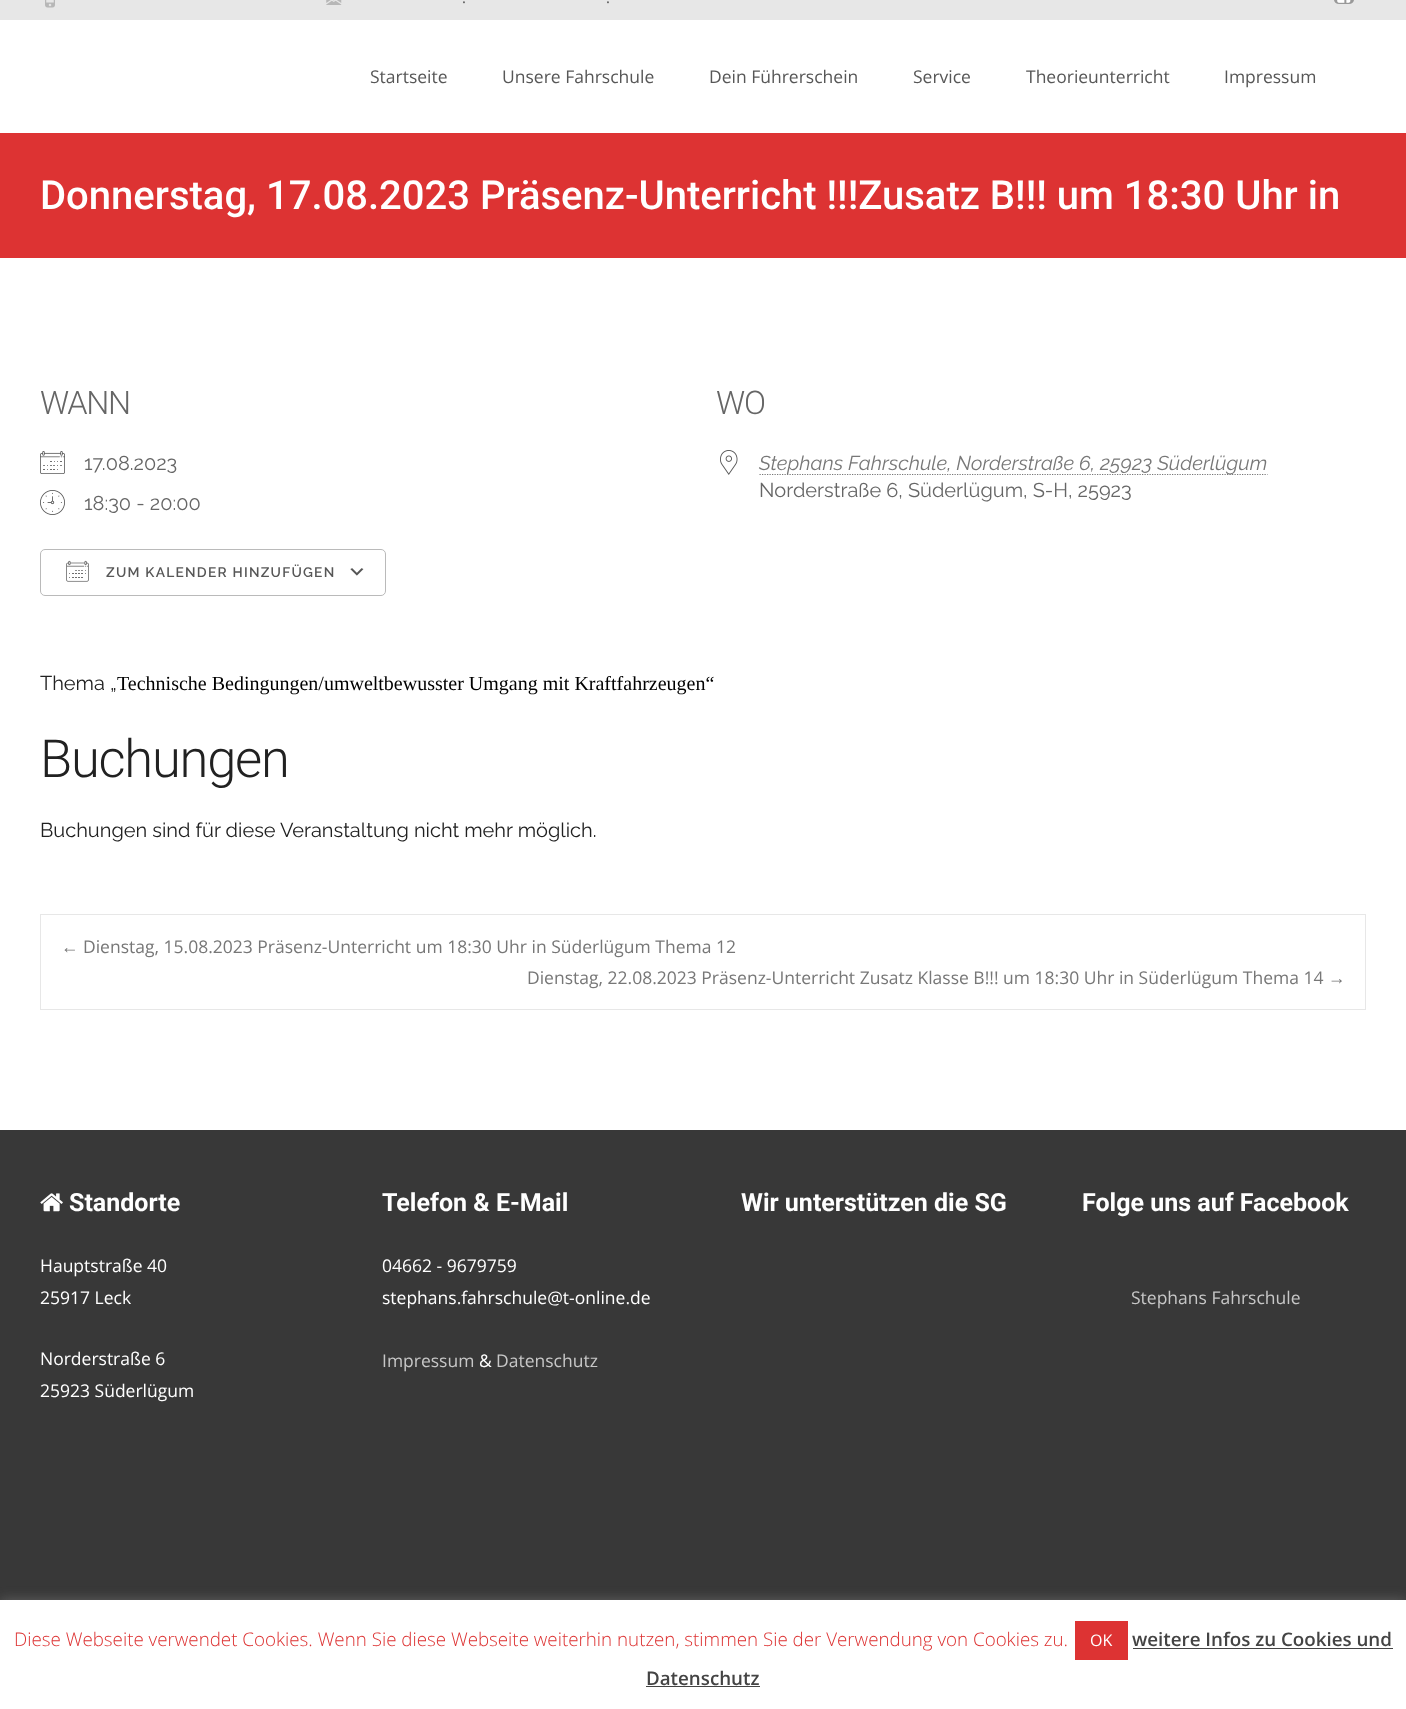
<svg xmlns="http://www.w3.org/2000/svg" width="1406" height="1709">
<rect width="100%" height="100%" fill="#fff"/>
<rect width="1406" height="20" fill="#e7e7e7"/>
<image x="45" y="0" width="10" height="8" href="media/1.png"/>
<image x="326" y="0" width="16" height="5" href="media/2.png"/>
<text x="462" y="3" style="font-family:Open Sans;font-size:15px;fill:#575757">.</text>
<text x="606" y="3" style="font-family:Open Sans;font-size:15px;fill:#575757">.</text>
<rect x="1334" y="-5" width="20" height="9" rx="5" fill="#999"/>
<image x="1337" y="0" width="14" height="3" href="media/3.png"/>
<text x="370" y="83" style="font-family:Open Sans;font-size:17.5px;fill:#575757">Startseite</text>
<text x="502" y="83" style="font-family:Open Sans;font-size:17.5px;fill:#575757">Unsere Fahrschule</text>
<text x="709" y="83" style="font-family:Open Sans;font-size:17.5px;fill:#575757">Dein Führerschein</text>
<text x="913" y="83" style="font-family:Open Sans;font-size:17.5px;fill:#575757">Service</text>
<text x="1026" y="83" style="font-family:Open Sans;font-size:17.5px;fill:#575757">Theorieunterricht</text>
<text x="1224" y="83" style="font-family:Open Sans;font-size:17.5px;fill:#575757">Impressum</text>
<rect y="133" width="1406" height="125" fill="#d33"/>
<text x="40" y="209" style="font-family:Roboto;font-size:40px;font-weight:500;fill:#fff">Donnerstag, 17.08.2023 Präsenz-Unterricht !!!Zusatz B!!! um 18:30 Uhr in</text>
<text x="40" y="414" style="font-family:Roboto;font-size:32.5px;font-weight:300;letter-spacing:-1.25px;fill:#666">WANN</text>
<image x="40" y="451" width="25" height="23" href="media/4.png"/>
<text x="84" y="470" style="font-family:Raleway;font-size:20px;fill:#666">17.08.2023</text>
<image x="40" y="490" width="25" height="25" href="media/5.png"/>
<text x="84" y="510" style="font-family:Raleway;font-size:20px;fill:#666">18:30 - 20:00</text>
<image x="350" y="568" width="14" height="8" href="media/6.png"/>
<rect x="40.5" y="549.5" width="345" height="46" rx="4.5" fill="none" stroke="#bababa"/>
<image x="66" y="560" width="23" height="22" href="media/7.png"/>
<text x="106" y="577" style="font-family:Raleway;font-size:13.75px;font-weight:600;letter-spacing:1.25px;fill:#575757">ZUM KALENDER HINZUFÜGEN</text>
<text x="716" y="414" style="font-family:Roboto;font-size:32.5px;font-weight:300;letter-spacing:-1.25px;fill:#666">WO</text>
<image x="720" y="450" width="18" height="25" href="media/8.png"/>
<path d="M759.5 474.5h508" fill="none" stroke="#787878" stroke-width="1.2" stroke-dasharray="1.25 1.25"/>
<text x="759" y="470" style="font-family:Raleway;font-size:20px;font-style:italic;fill:#777">Stephans Fahrschule, Norderstraße 6, 25923 Süderlügum</text>
<text x="759" y="497" style="font-family:Raleway;font-size:20px;fill:#666">Norderstraße 6, Süderlügum, S-H, 25923</text>
<text x="40" y="690" style="font-family:Raleway;font-size:20px;fill:#212121">Thema „</text>
<text x="117" y="690" style="font-family:Liberation Serif;font-size:20px;fill:#000">Technische Bedingungen/umweltbewusster Umgang mit Kraftfahrzeugen“</text>
<text x="40" y="777" style="font-family:Roboto;font-size:52.5px;font-weight:300;letter-spacing:-1.25px;fill:#212121">Buchungen</text>
<text x="40" y="837" style="font-family:Raleway;font-size:20px;fill:#212121">Buchungen sind für diese Veranstaltung nicht mehr möglich.</text>
<rect x="40.5" y="914.5" width="1325" height="95" fill="none" stroke="#e7e7e7"/>
<text x="61" y="953" style="font-family:Liberation Sans;font-size:17.5px;fill:#777">←</text>
<text x="83" y="953" style="font-family:Open Sans;font-size:17.5px;fill:#777">Dienstag, 15.08.2023 Präsenz-Unterricht um 18:30 Uhr in Süderlügum Thema 12</text>
<text x="527" y="984" style="font-family:Open Sans;font-size:17.5px;fill:#777">Dienstag, 22.08.2023 Präsenz-Unterricht Zusatz Klasse B!!! um 18:30 Uhr in Süderlügum Thema 14</text>
<text x="1328" y="984" style="font-family:Liberation Sans;font-size:17.5px;fill:#777">→</text>
<rect y="1130" width="1406" height="470" fill="#383838"/>
<image x="40" y="1193" width="23" height="19" href="media/9.png"/>
<text x="69" y="1211" style="font-family:Roboto;font-size:25px;font-weight:bold;fill:#fff">Standorte</text>
<text x="40" y="1272" style="font-family:Open Sans;font-size:17.5px;fill:#fff">Hauptstraße 40</text>
<text x="40" y="1304" style="font-family:Open Sans;font-size:17.5px;fill:#fff">25917 Leck</text>
<text x="40" y="1365" style="font-family:Open Sans;font-size:17.5px;fill:#fff">Norderstraße 6</text>
<text x="40" y="1397" style="font-family:Open Sans;font-size:17.5px;fill:#fff">25923 Süderlügum</text>
<text x="382" y="1211" style="font-family:Roboto;font-size:25px;font-weight:bold;fill:#fff">Telefon &amp; E-Mail</text>
<text x="382" y="1272" style="font-family:Open Sans;font-size:17.5px;fill:#fff">04662 - 9679759</text>
<text x="382" y="1304" style="font-family:Open Sans;font-size:17.5px;fill:#fff">stephans.fahrschule@t-online.de</text>
<text x="382" y="1367" style="font-family:Open Sans;font-size:17.5px;fill:#c7c7c7">Impressum</text>
<text x="479" y="1367" style="font-family:Open Sans;font-size:17.5px;fill:#fff">&amp;</text>
<text x="496" y="1367" style="font-family:Open Sans;font-size:17.5px;fill:#c7c7c7">Datenschutz</text>
<text x="741" y="1211" style="font-family:Roboto;font-size:25px;font-weight:bold;fill:#fff">Wir unterstützen die SG</text>
<text x="1082" y="1211" style="font-family:Roboto;font-size:25px;font-weight:bold;fill:#fff">Folge uns auf Facebook</text>
<text x="1131" y="1304" style="font-family:Open Sans;font-size:17.5px;fill:#c7c7c7">Stephans Fahrschule</text>
<rect y="1599" width="1406" height="110" fill="#acabab4d" filter="blur(6px)"/>
<rect y="1600" width="1406" height="109" fill="#fff"/>
<text x="14" y="1646" style="font-family:Open Sans;font-size:18.75px;font-weight:300;fill:#d33">Diese Webseite verwendet Cookies. Wenn Sie diese Webseite weiterhin nutzen, stimmen Sie der Verwendung von Cookies zu.</text>
<rect x="1075" y="1621" width="53" height="39" fill="#d33"/>
<text x="1090" y="1646" style="font-family:Open Sans;font-size:16px;fill:#fff">OK</text>
<text x="1132" y="1646" style="font-family:Open Sans;font-size:18.75px;font-weight:600;fill:#444">weitere Infos zu Cookies und</text>
<rect x="1133" y="1648" width="260" height="1" fill="#444"/>
<text x="646" y="1685" style="font-family:Open Sans;font-size:18.75px;font-weight:600;fill:#444">Datenschutz</text>
<rect x="646" y="1686" width="114" height="1" fill="#444"/>
</svg>
